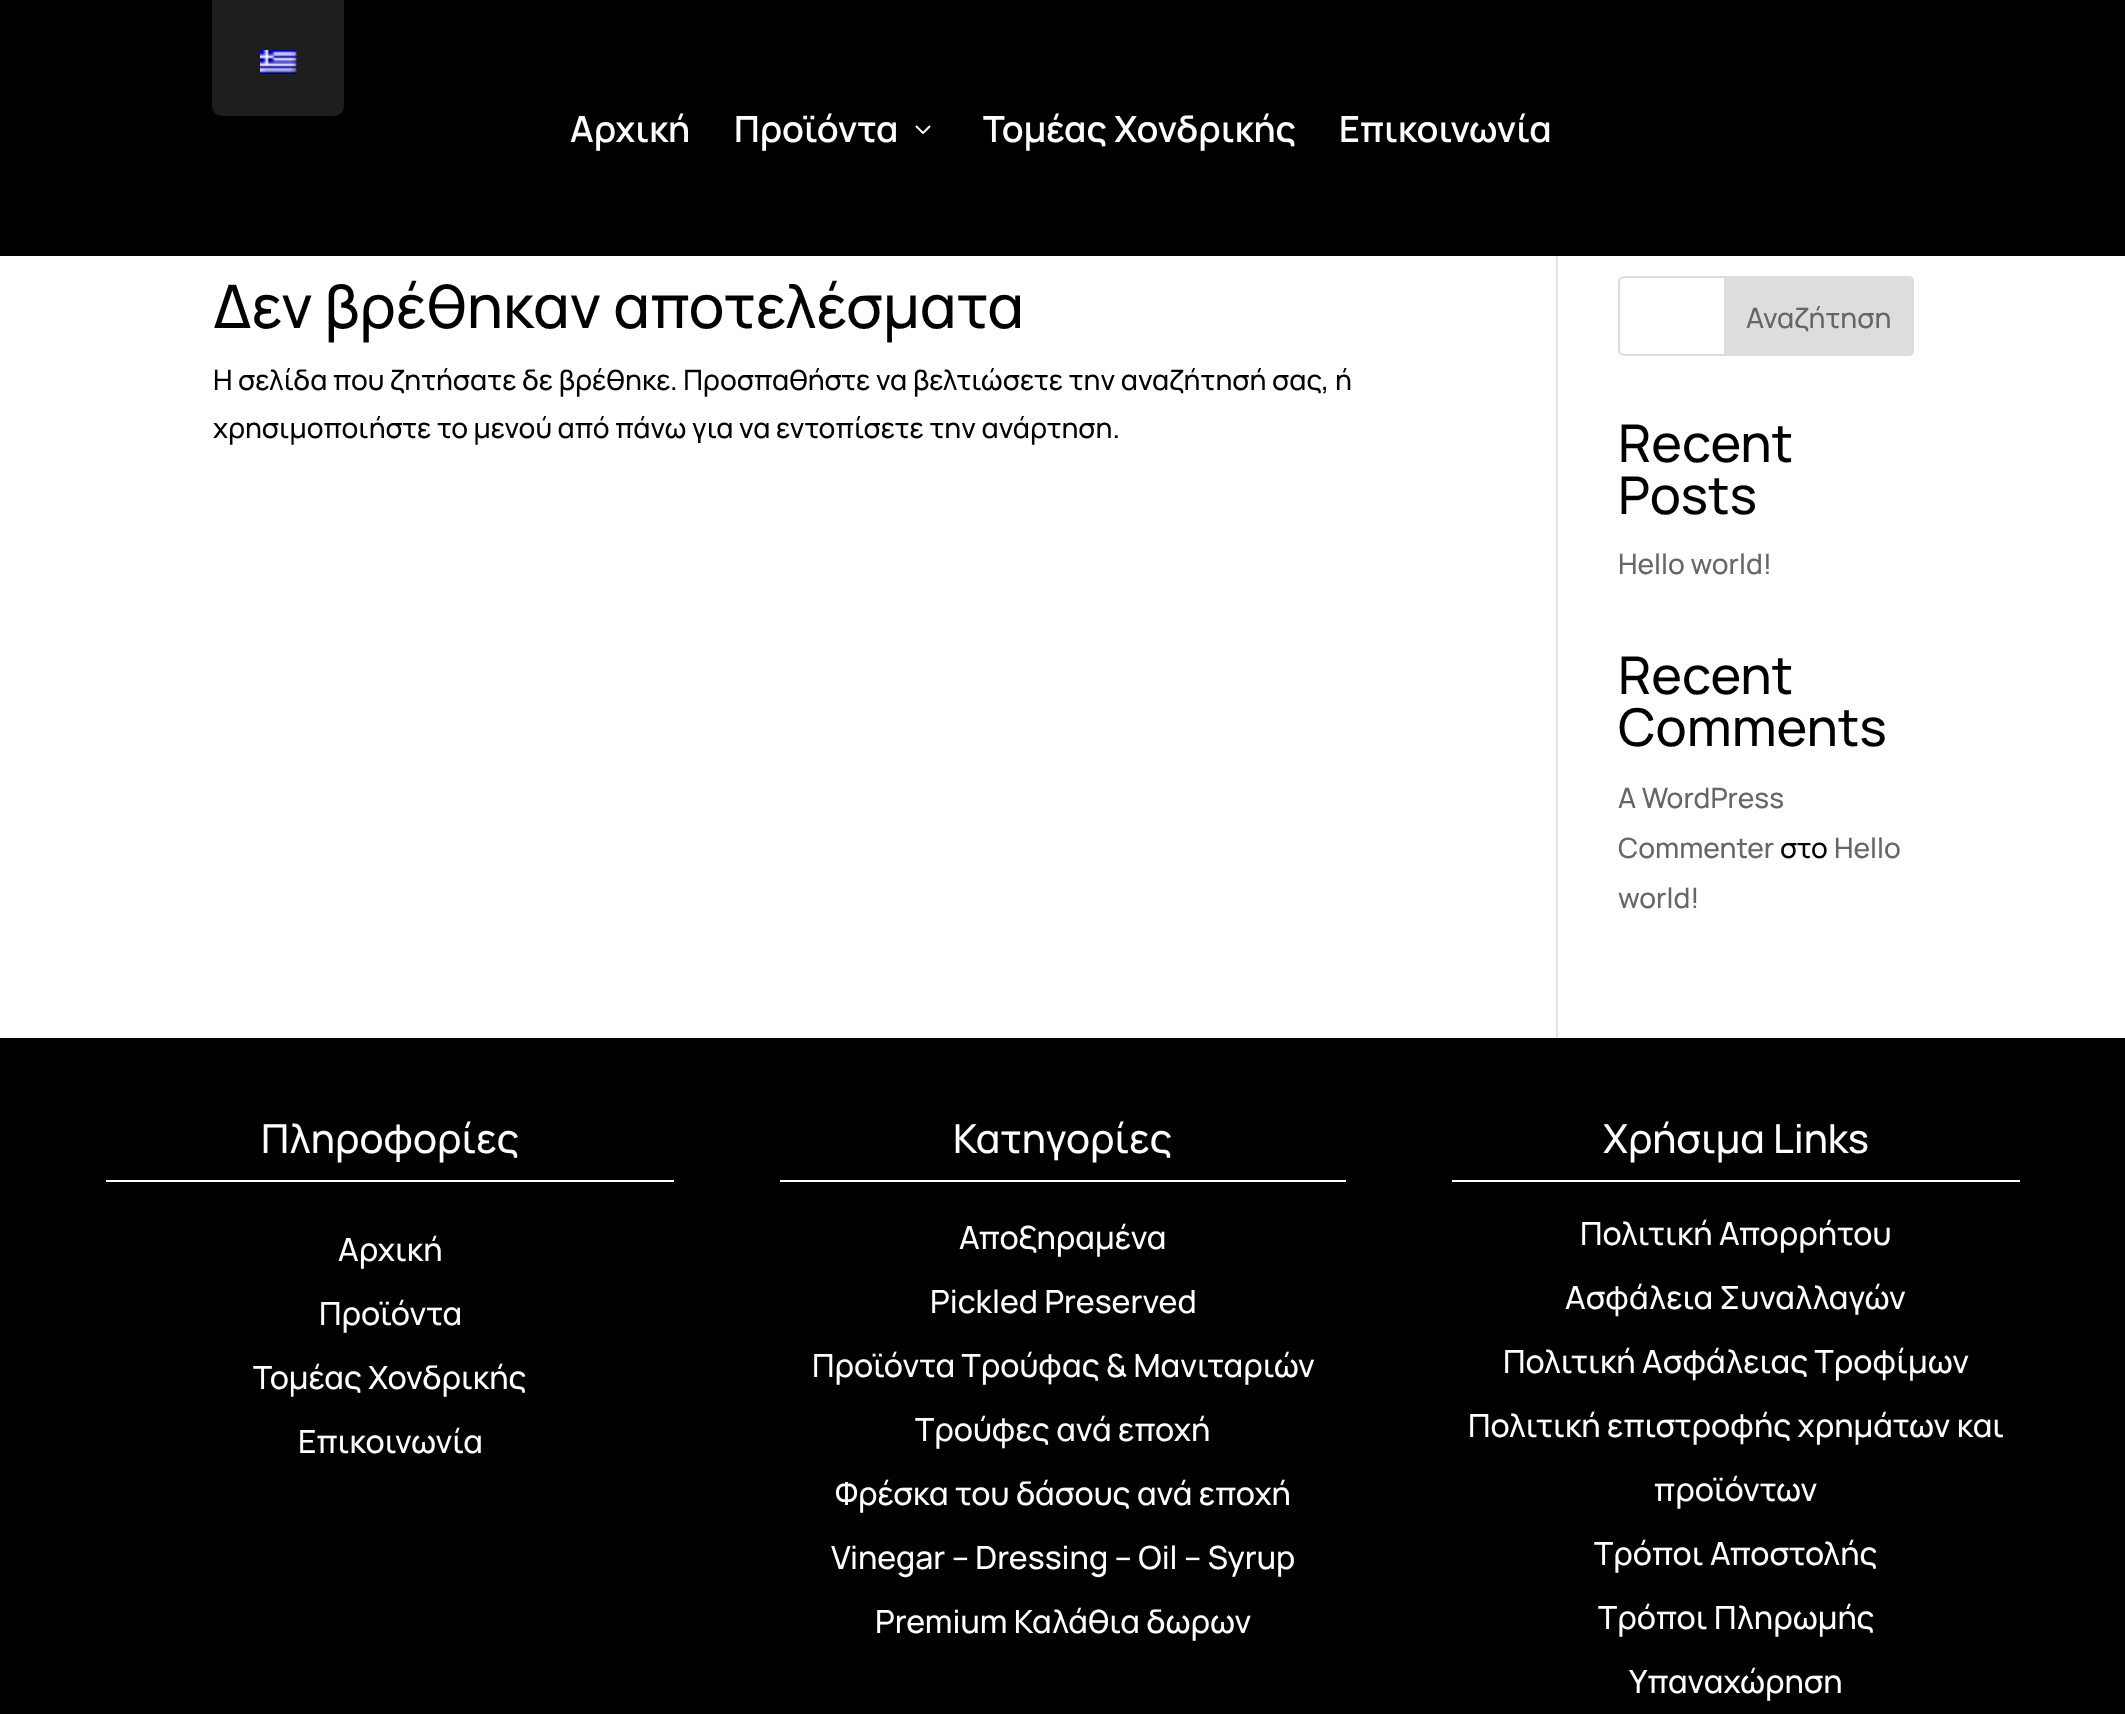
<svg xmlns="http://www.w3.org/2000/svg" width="2125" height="1714">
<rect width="100%" height="100%" fill="#000"/>
<path d="M212 0h132v106c0 5.5-4.5 10-10 10h-112c-5.5 0-10-4.5-10-10z" fill="#1e1e1e"/>
<image x="260" y="50" width="37" height="24" href="media/1.png"/>
<text x="570" y="142" style="font-family:Manrope;font-size:36px;font-weight:600;fill:#fff">Αρχική</text>
<text x="734" y="142" style="font-family:Manrope;font-size:36px;font-weight:600;fill:#fff">Προϊόντα</text>
<image x="915" y="125" width="16" height="9" href="media/2.png"/>
<text x="983" y="142" style="font-family:Manrope;font-size:36px;font-weight:600;fill:#fff">Τομέας Χονδρικής</text>
<text x="1339" y="142" style="font-family:Manrope;font-size:36px;font-weight:600;fill:#fff">Επικοινωνία</text>
<rect y="256" width="2125" height="782" fill="#fff"/>
<rect x="1556" y="256" width="2" height="782" fill="#e2e2e2"/>
<text x="213" y="328" style="font-family:Manrope;font-size:60px;font-weight:500;fill:#000">Δεν βρέθηκαν αποτελέσματα</text>
<text x="213" y="390" style="font-family:Manrope;font-size:28px;font-weight:500;fill:#000">Η σελίδα που ζητήσατε δε βρέθηκε. Προσπαθήστε να βελτιώσετε την αναζήτησή σας, ή</text>
<text x="213" y="438" style="font-family:Manrope;font-size:28px;font-weight:500;fill:#000">χρησιμοποιήστε το μενού από πάνω για να εντοπίσετε την ανάρτηση.</text>
<rect x="1619" y="277" width="294" height="78" rx="5" fill="none" stroke="#ddd" stroke-width="2"/>
<path d="M1725 277h183c3 0 5 2 5 5v68c0 3-2 5-5 5h-183z" fill="#ddd" stroke="#ddd" stroke-width="2"/>
<text x="1746" y="328" style="font-family:Manrope;font-size:28px;font-weight:500;fill:#666">Αναζήτηση</text>
<text x="1618" y="462" style="font-family:Manrope;font-size:52px;font-weight:500;fill:#000">Recent</text>
<text x="1618" y="514" style="font-family:Manrope;font-size:52px;font-weight:500;fill:#000">Posts</text>
<text x="1618" y="574" style="font-family:Manrope;font-size:28px;font-weight:500;fill:#666">Hello world!</text>
<text x="1618" y="694" style="font-family:Manrope;font-size:52px;font-weight:500;fill:#000">Recent</text>
<text x="1618" y="746" style="font-family:Manrope;font-size:52px;font-weight:500;fill:#000">Comments</text>
<text x="1618" y="808" style="font-family:Manrope;font-size:28px;font-weight:500;fill:#666">A WordPress</text>
<text x="1618" y="858" style="font-family:Manrope;font-size:28px;font-weight:500;fill:#666">Commenter</text>
<text x="1780" y="858" style="font-family:Manrope;font-size:28px;font-weight:500;fill:#000">στο</text>
<text x="1834" y="858" style="font-family:Manrope;font-size:28px;font-weight:500;fill:#666">Hello</text>
<text x="1618" y="908" style="font-family:Manrope;font-size:28px;font-weight:500;fill:#666">world!</text>
<rect x="106" y="1180" width="568" height="2" fill="#fff"/>
<text x="261" y="1153" style="font-family:Manrope;font-size:40px;font-weight:500;fill:#fff">Πληροφορίες</text>
<text x="338" y="1261" style="font-family:Manrope;font-size:32px;font-weight:500;fill:#fff">Αρχική</text>
<text x="319" y="1325" style="font-family:Manrope;font-size:32px;font-weight:500;fill:#fff">Προϊόντα</text>
<text x="253" y="1389" style="font-family:Manrope;font-size:32px;font-weight:500;fill:#fff">Τομέας Χονδρικής</text>
<text x="298" y="1453" style="font-family:Manrope;font-size:32px;font-weight:500;fill:#fff">Επικοινωνία</text>
<rect x="780" y="1180" width="566" height="2" fill="#fff"/>
<text x="953" y="1153" style="font-family:Manrope;font-size:40px;font-weight:500;fill:#fff">Κατηγορίες</text>
<text x="959" y="1249" style="font-family:Manrope;font-size:32px;font-weight:500;fill:#fff">Αποξηραμένα</text>
<text x="930" y="1313" style="font-family:Manrope;font-size:32px;font-weight:500;fill:#fff">Pickled Preserved</text>
<text x="812" y="1377" style="font-family:Manrope;font-size:32px;font-weight:500;fill:#fff">Προϊόντα Τρούφας &amp; Μανιταριών</text>
<text x="915" y="1441" style="font-family:Manrope;font-size:32px;font-weight:500;fill:#fff">Τρούφες ανά εποχή</text>
<text x="835" y="1505" style="font-family:Manrope;font-size:32px;font-weight:500;fill:#fff">Φρέσκα του δάσους ανά εποχή</text>
<text x="831" y="1569" style="font-family:Manrope;font-size:32px;font-weight:500;fill:#fff">Vinegar – Dressing – Oil – Syrup</text>
<text x="875" y="1633" style="font-family:Manrope;font-size:32px;font-weight:500;fill:#fff">Premium Καλάθια δωρων</text>
<rect x="1452" y="1180" width="568" height="2" fill="#fff"/>
<text x="1603" y="1153" style="font-family:Manrope;font-size:40px;font-weight:500;fill:#fff">Χρήσιμα Links</text>
<text x="1580" y="1245" style="font-family:Manrope;font-size:32px;font-weight:500;fill:#fff">Πολιτική Απορρήτου</text>
<text x="1565" y="1309" style="font-family:Manrope;font-size:32px;font-weight:500;fill:#fff">Ασφάλεια Συναλλαγών</text>
<text x="1503" y="1373" style="font-family:Manrope;font-size:32px;font-weight:500;fill:#fff">Πολιτική Ασφάλειας Τροφίμων</text>
<text x="1468" y="1437" style="font-family:Manrope;font-size:32px;font-weight:500;fill:#fff">Πολιτική επιστροφής χρημάτων και</text>
<text x="1654" y="1501" style="font-family:Manrope;font-size:32px;font-weight:500;fill:#fff">προϊόντων</text>
<text x="1594" y="1565" style="font-family:Manrope;font-size:32px;font-weight:500;fill:#fff">Τρόποι Αποστολής</text>
<text x="1598" y="1629" style="font-family:Manrope;font-size:32px;font-weight:500;fill:#fff">Τρόποι Πληρωμής</text>
<text x="1629" y="1693" style="font-family:Manrope;font-size:32px;font-weight:500;fill:#fff">Υπαναχώρηση</text>
</svg>
